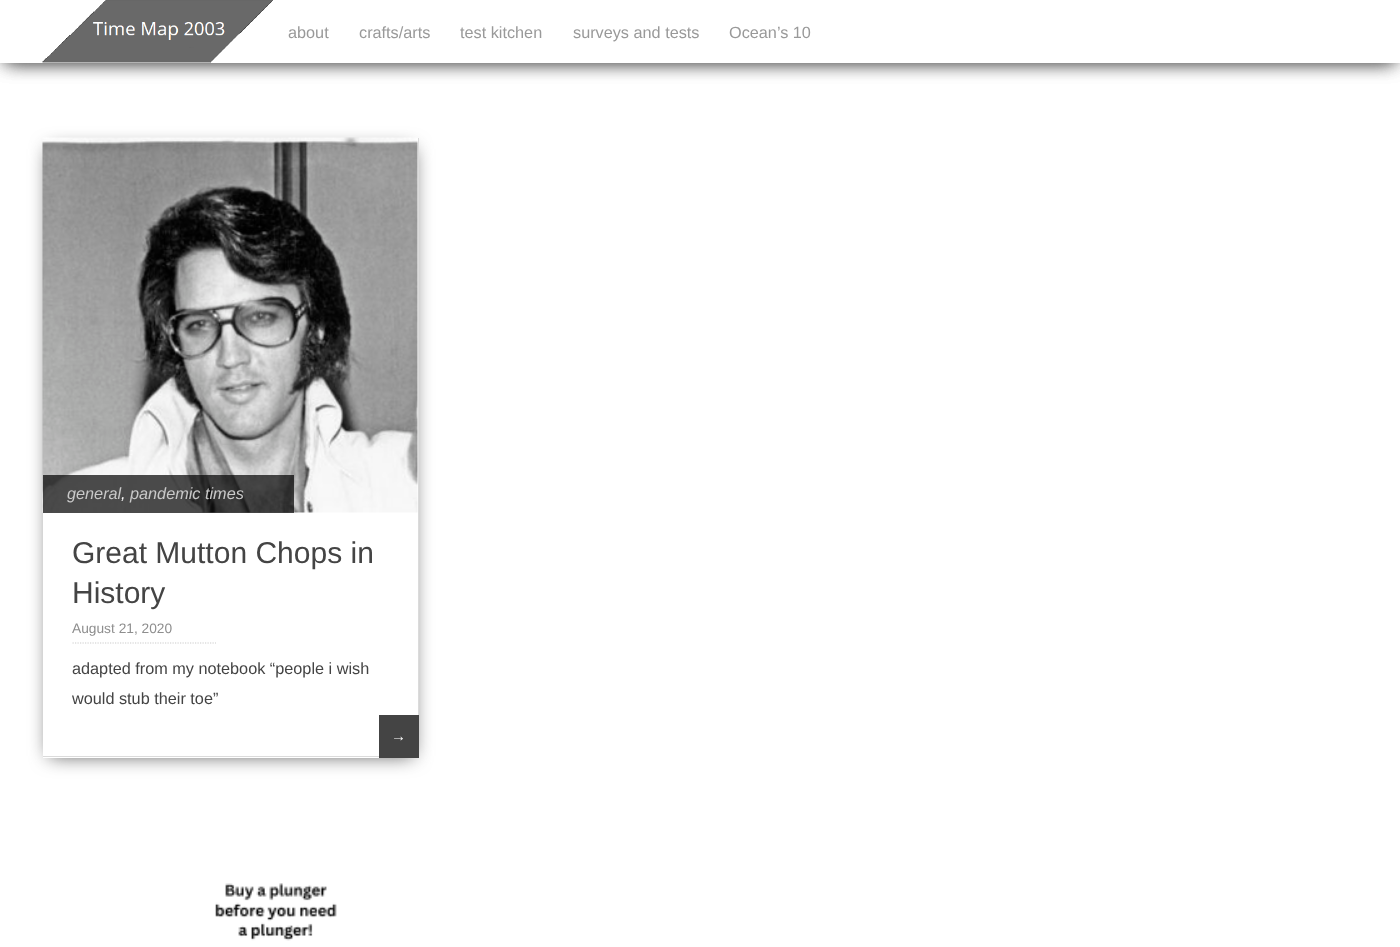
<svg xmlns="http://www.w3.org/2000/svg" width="1400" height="947">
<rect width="100%" height="100%" fill="#fff"/>
<rect x="6" y="11" width="1388" height="50" fill="#555" filter="blur(9.5px)"/>
<rect x="6" y="11" width="1388" height="50" fill="#555" filter="blur(9.5px)"/>
<rect width="1400" height="63" fill="#fff"/>
<image x="42" y="0" width="231" height="63" href="media/1.png"/>
<text x="288" y="38" style="font-family:Liberation Sans;font-size:16.25px;fill:#999">about</text>
<text x="359" y="38" style="font-family:Liberation Sans;font-size:16.25px;fill:#999">crafts/arts</text>
<text x="460" y="38" style="font-family:Liberation Sans;font-size:16.25px;fill:#999">test kitchen</text>
<text x="573" y="38" style="font-family:Liberation Sans;font-size:16.25px;fill:#999">surveys and tests</text>
<text x="729" y="38" style="font-family:Liberation Sans;font-size:16.25px;fill:#999">Ocean’s 10</text>
<rect x="49" y="149" width="364" height="607" fill="#555" filter="blur(9.5px)"/>
<rect x="43" y="138" width="375" height="620" fill="#fff"/>
<rect x="418" y="138" width="1" height="577" fill="#dbdbdb"/>
<rect x="43" y="756" width="336" height="1" fill="#dbdbdb"/>
<image x="42" y="137" width="376" height="376" href="media/2.png"/>
<rect x="43" y="475" width="251" height="38" fill="#000000b3"/>
<text x="67" y="499" style="font-family:Liberation Sans;font-size:16.25px;font-style:italic;fill:#c9c9c9">general</text>
<text x="121" y="499" style="font-family:Liberation Sans;font-size:16.25px;font-style:italic;fill:#fafafa">,</text>
<text x="130" y="499" style="font-family:Liberation Sans;font-size:16.25px;font-style:italic;fill:#c9c9c9">pandemic times</text>
<text x="72" y="563" style="font-family:Liberation Sans;font-size:30px;fill:#444">Great Mutton Chops in</text>
<text x="72" y="603" style="font-family:Liberation Sans;font-size:30px;fill:#444">History</text>
<path d="M72.5 643h143.5" fill="none" stroke="#ccc" stroke-width="1.2" stroke-dasharray="1.25 1.25"/>
<text x="72" y="633" style="font-family:Liberation Sans;font-size:13.75px;fill:#8e8e8e">August 21, 2020</text>
<text x="72" y="674" style="font-family:Liberation Sans;font-size:16.25px;fill:#444">adapted from my notebook “people i wish</text>
<text x="72" y="704" style="font-family:Liberation Sans;font-size:16.25px;fill:#444">would stub their toe”</text>
<rect x="379" y="715" width="40" height="43" fill="#444"/>
<text x="391" y="741" style="font-family:Liberation Sans;font-size:15px;fill:#fafafa">→</text>
<image x="215" y="883" width="122" height="58" href="media/3.png"/>
</svg>
